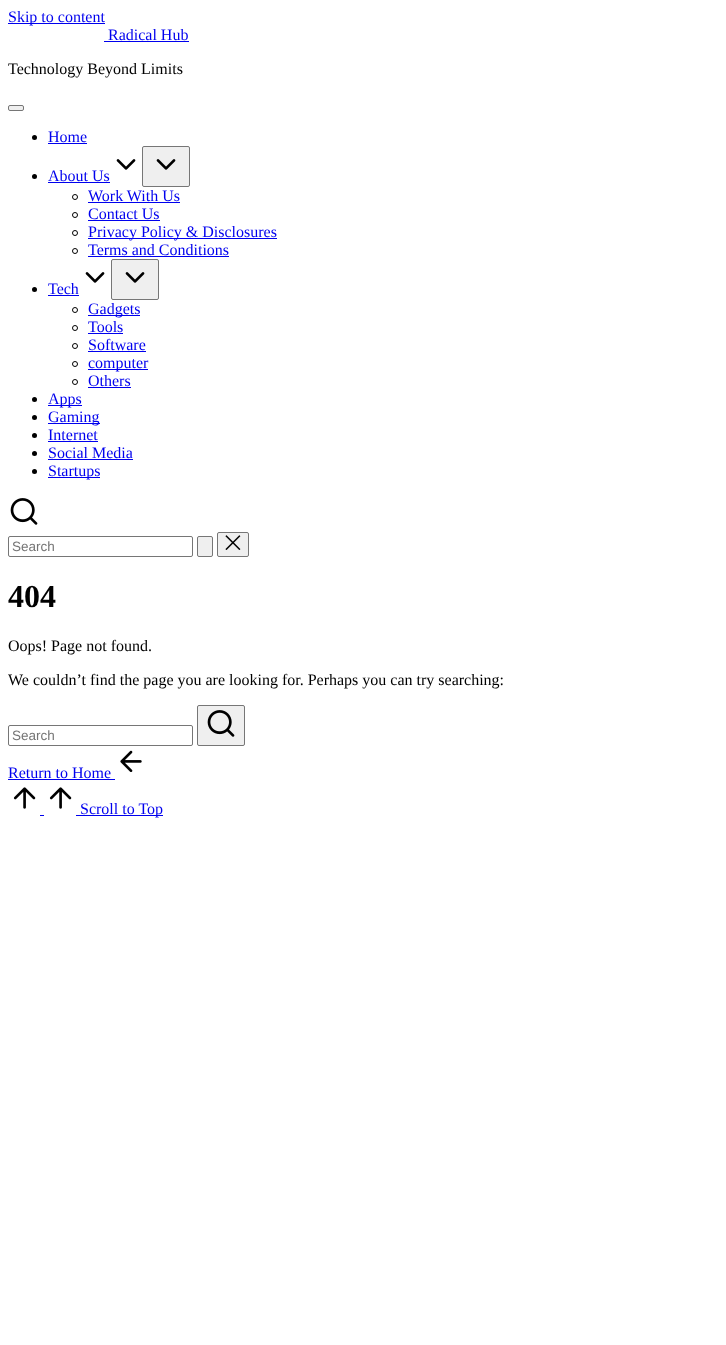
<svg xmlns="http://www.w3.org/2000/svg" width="726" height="1345">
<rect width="100%" height="100%" fill="#fff"/>
<rect x="8" y="23" width="97" height="1" fill="#00e"/>
<text x="8" y="22" style="font-family:Liberation Serif;font-size:16px;fill:#00e">Skip to content</text>
<text x="108" y="40" style="font-family:Liberation Serif;font-size:16px;fill:#00e">Radical Hub</text>
<rect x="104" y="41" width="85" height="1" fill="#00e"/>
<text x="8" y="74" style="font-family:Liberation Serif;font-size:16px;fill:#000">Technology Beyond Limits</text>
<rect x="8.5" y="105.5" width="15" height="5" rx="1.5" fill="#efefef" stroke="#767676"/>
<circle cx="34.5" cy="137.5" r="2.5" fill="#000"/>
<text x="48" y="142" style="font-family:Liberation Serif;font-size:16px;fill:#00e">Home</text>
<rect x="48" y="143" width="39" height="1" fill="#00e"/>
<image x="116" y="159" width="20" height="11" href="media/1.png"/>
<rect x="142.5" y="146.5" width="47" height="40" rx="1.5" fill="#efefef" stroke="#767676"/>
<image x="156" y="159" width="20" height="11" href="media/2.png"/>
<circle cx="34.5" cy="176.5" r="2.5" fill="#000"/>
<text x="48" y="181" style="font-family:Liberation Serif;font-size:16px;fill:#00e">About Us</text>
<rect x="48" y="182" width="62" height="1" fill="#00e"/>
<circle cx="75" cy="197" r="2.5" fill="none" stroke="#000"/>
<text x="88" y="201" style="font-family:Liberation Serif;font-size:16px;fill:#00e">Work With Us</text>
<rect x="88" y="202" width="92" height="1" fill="#00e"/>
<circle cx="75" cy="215" r="2.5" fill="none" stroke="#000"/>
<text x="88" y="219" style="font-family:Liberation Serif;font-size:16px;fill:#00e">Contact Us</text>
<rect x="88" y="220" width="72" height="1" fill="#00e"/>
<circle cx="75" cy="233" r="2.5" fill="none" stroke="#000"/>
<rect x="88" y="238" width="189" height="1" fill="#00e"/>
<text x="88" y="237" style="font-family:Liberation Serif;font-size:16px;fill:#00e">Privacy Policy &amp; Disclosures</text>
<circle cx="75" cy="251" r="2.5" fill="none" stroke="#000"/>
<text x="88" y="255" style="font-family:Liberation Serif;font-size:16px;fill:#00e">Terms and Conditions</text>
<rect x="88" y="256" width="141" height="1" fill="#00e"/>
<image x="85" y="272" width="20" height="11" href="media/1.png"/>
<rect x="111.5" y="259.5" width="47" height="40" rx="1.5" fill="#efefef" stroke="#767676"/>
<image x="125" y="272" width="20" height="11" href="media/2.png"/>
<circle cx="34.5" cy="289.5" r="2.5" fill="#000"/>
<text x="48" y="294" style="font-family:Liberation Serif;font-size:16px;fill:#00e">Tech</text>
<rect x="48" y="295" width="31" height="1" fill="#00e"/>
<circle cx="75" cy="310" r="2.5" fill="none" stroke="#000"/>
<rect x="88" y="315" width="52" height="1" fill="#00e"/>
<text x="88" y="314" style="font-family:Liberation Serif;font-size:16px;fill:#00e">Gadgets</text>
<circle cx="75" cy="328" r="2.5" fill="none" stroke="#000"/>
<text x="88" y="332" style="font-family:Liberation Serif;font-size:16px;fill:#00e">Tools</text>
<rect x="88" y="333" width="35" height="1" fill="#00e"/>
<circle cx="75" cy="346" r="2.5" fill="none" stroke="#000"/>
<text x="88" y="350" style="font-family:Liberation Serif;font-size:16px;fill:#00e">Software</text>
<rect x="88" y="351" width="58" height="1" fill="#00e"/>
<circle cx="75" cy="364" r="2.5" fill="none" stroke="#000"/>
<rect x="88" y="369" width="60" height="1" fill="#00e"/>
<text x="88" y="368" style="font-family:Liberation Serif;font-size:16px;fill:#00e">computer</text>
<circle cx="75" cy="382" r="2.5" fill="none" stroke="#000"/>
<text x="88" y="386" style="font-family:Liberation Serif;font-size:16px;fill:#00e">Others</text>
<rect x="88" y="387" width="43" height="1" fill="#00e"/>
<circle cx="34.5" cy="399.5" r="2.5" fill="#000"/>
<rect x="48" y="405" width="34" height="1" fill="#00e"/>
<text x="48" y="404" style="font-family:Liberation Serif;font-size:16px;fill:#00e">Apps</text>
<circle cx="34.5" cy="417.5" r="2.5" fill="#000"/>
<rect x="48" y="423" width="52" height="1" fill="#00e"/>
<text x="48" y="422" style="font-family:Liberation Serif;font-size:16px;fill:#00e">Gaming</text>
<circle cx="34.5" cy="435.5" r="2.5" fill="#000"/>
<text x="48" y="440" style="font-family:Liberation Serif;font-size:16px;fill:#00e">Internet</text>
<rect x="48" y="441" width="50" height="1" fill="#00e"/>
<circle cx="34.5" cy="453.5" r="2.5" fill="#000"/>
<text x="48" y="458" style="font-family:Liberation Serif;font-size:16px;fill:#00e">Social Media</text>
<rect x="48" y="459" width="85" height="1" fill="#00e"/>
<circle cx="34.5" cy="471.5" r="2.5" fill="#000"/>
<rect x="48" y="477" width="52" height="1" fill="#00e"/>
<text x="48" y="476" style="font-family:Liberation Serif;font-size:16px;fill:#00e">Startups</text>
<image x="10" y="498" width="28" height="27" href="media/3.png"/>
<rect x="8.5" y="536.5" width="184" height="20" rx="1.5" fill="none" stroke="#767676"/>
<text x="12" y="551" style="font-family:Liberation Sans;font-size:13.5px;fill:#757575">Search</text>
<rect x="197.5" y="536.5" width="15" height="20" rx="1.5" fill="#efefef" stroke="#767676"/>
<rect x="217.5" y="532.5" width="31" height="24" rx="1.5" fill="#efefef" stroke="#767676"/>
<image x="225" y="535" width="16" height="15" href="media/4.png"/>
<text x="8" y="607" style="font-family:Liberation Serif;font-size:32px;font-weight:bold;fill:#000">404</text>
<text x="8" y="651" style="font-family:Liberation Serif;font-size:16px;fill:#000">Oops! Page not found.</text>
<text x="8" y="685" style="font-family:Liberation Serif;font-size:16px;fill:#000">We couldn’t find the page you are looking for. Perhaps you can try searching:</text>
<rect x="8.5" y="725.5" width="184" height="20" rx="1.5" fill="none" stroke="#767676"/>
<text x="12" y="740" style="font-family:Liberation Sans;font-size:13.5px;fill:#757575">Search</text>
<rect x="197.5" y="705.5" width="47" height="40" rx="1.5" fill="#efefef" stroke="#767676"/>
<image x="207" y="710" width="28" height="27" href="media/5.png"/>
<text x="8" y="778" style="font-family:Liberation Serif;font-size:16px;fill:#00e">Return to Home</text>
<rect x="8" y="779" width="107" height="1" fill="#00e"/>
<image x="120" y="750" width="22" height="22" href="media/6.png"/>
<image x="13" y="787" width="23" height="22" href="media/7.png"/>
<image x="49" y="787" width="23" height="22" href="media/7.png"/>
<rect x="76" y="815" width="87" height="1" fill="#00e"/>
<text x="80" y="814" style="font-family:Liberation Serif;font-size:16px;fill:#00e">Scroll to Top</text>
<rect x="40" y="815" width="4" height="1" fill="#00e"/>
</svg>
